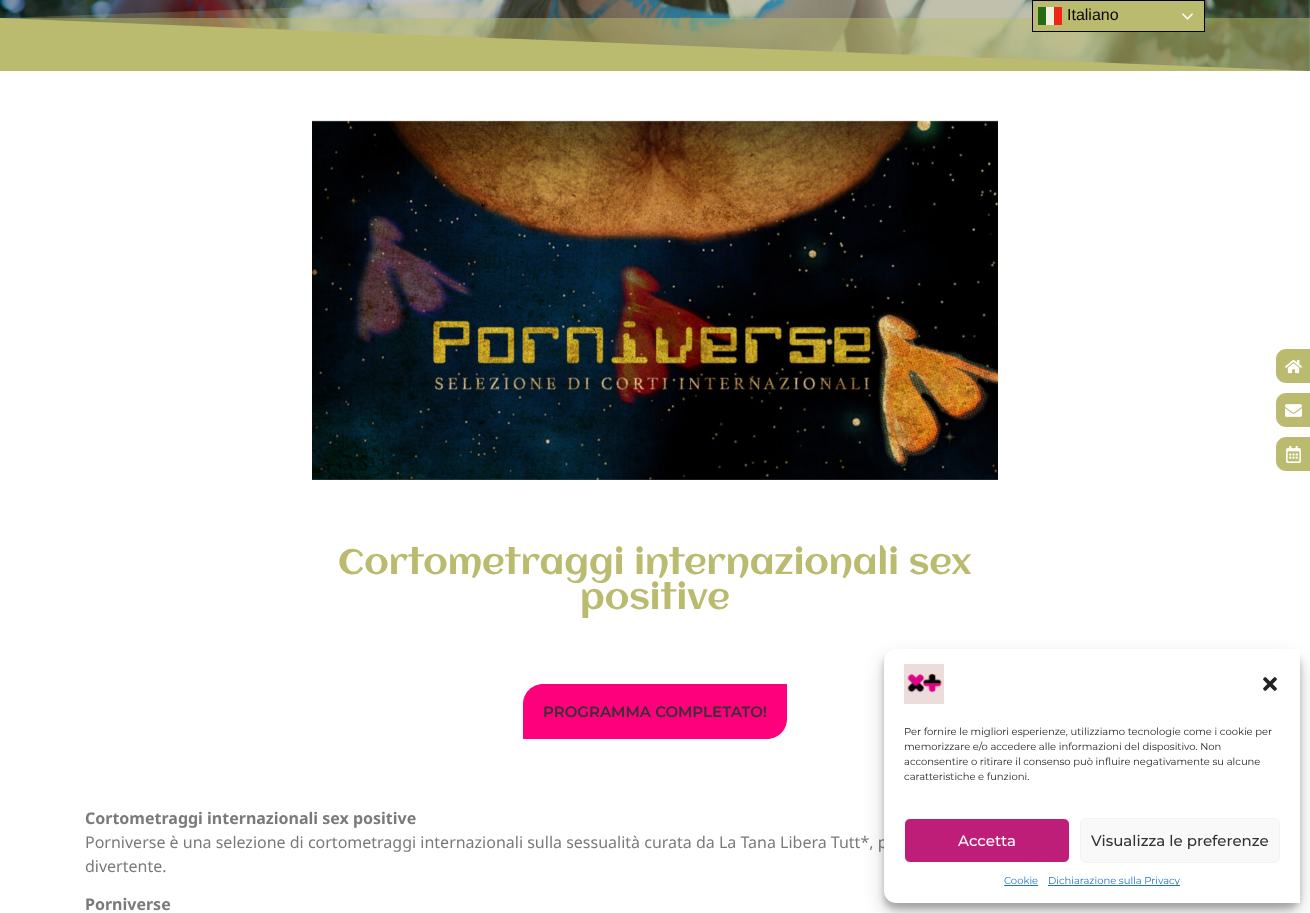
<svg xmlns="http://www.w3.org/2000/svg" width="1310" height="913">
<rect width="100%" height="100%" fill="#fff"/>
<image x="0" y="0" width="1310" height="71" href="media/5.png"/>
<path d="M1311 71h-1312v-53z" fill="#babb6e"/>
<rect y="18" width="1310" height="53" fill="#babb6e80"/>
<path d="M-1 71h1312v-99l-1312 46z" fill="#babb6e40"/>
<rect x="1032.5" y="0.5" width="172" height="31" fill="#babb6e" stroke="#000"/>
<rect x="1038" y="7" width="8" height="18" fill="#256b16"/>
<rect x="1046" y="7" width="8" height="18" fill="#f1f1e2"/>
<rect x="1054" y="7" width="8" height="18" fill="#ef2516"/>
<text x="1067" y="20" style="font-family:Liberation Sans;font-size:16px;fill:#0a0505">Italiano</text>
<image x="1182" y="13" width="11" height="7" href="media/1.png"/>
<path d="M1286 349h24v34h-24c-5.5 0-10-4.5-10-10v-14c0-5.5 4.5-10 10-10z" fill="#babb6e"/>
<image x="1285" y="359" width="17" height="15" href="media/2.png"/>
<path d="M1286 393h24v34h-24c-5.5 0-10-4.5-10-10v-14c0-5.5 4.5-10 10-10z" fill="#babb6e"/>
<image x="1285" y="404" width="17" height="13" href="media/3.png"/>
<path d="M1286 437h24v34h-24c-5.5 0-10-4.5-10-10v-14c0-5.5 4.5-10 10-10z" fill="#babb6e"/>
<image x="1286" y="446" width="15" height="17" href="media/4.png"/>
<image x="312" y="120" width="686" height="360" href="media/6.png"/>
<text x="338" y="574" style="font-family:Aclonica;font-size:35px;fill:#babb6e">Cortometraggi internazionali sex</text>
<text x="580" y="609" style="font-family:Aclonica;font-size:35px;fill:#babb6e">positive</text>
<path d="M543 684h244v35c0 11-9 20-20 20h-244v-35c0-11 9-20 20-20z" fill="#ff007d"/>
<text x="543" y="717" style="font-family:Montserrat;font-size:15px;font-weight:600;fill:#333">PROGRAMMA COMPLETATO!</text>
<text x="85" y="824" style="font-family:Noto Sans;font-size:16px;font-weight:bold;fill:#7a7a7a">Cortometraggi internazionali sex positive</text>
<text x="85" y="848" style="font-family:Noto Sans;font-size:16px;fill:#7a7a7a">Porniverse è una selezione di cortometraggi internazionali sulla sessualità curata da La Tana Libera Tutt*, p</text>
<text x="85" y="872" style="font-family:Noto Sans;font-size:16px;fill:#7a7a7a">divertente.</text>
<text x="85" y="910" style="font-family:Noto Sans;font-size:16px;font-weight:bold;fill:#7a7a7a">Porniverse</text>
<rect x="884" y="655" width="416" height="254" rx="12" fill="#0000003b" filter="blur(3px)"/>
<rect x="884" y="659" width="416" height="254" rx="12" fill="#00000030" filter="blur(10px)"/>
<path d="M896 649h404v254h-404c-6.5 0-12-5.5-12-12v-230c0-6.5 5.5-12 12-12z" fill="#fff"/>
<image x="904" y="664" width="40" height="40" href="media/7.png"/>
<image x="1263" y="677" width="14" height="14" href="media/8.png"/>
<text x="904" y="735" style="font-family:Montserrat;font-size:10px;fill:#222">Per fornire le migliori esperienze, utilizziamo tecnologie come i cookie per</text>
<text x="904" y="750" style="font-family:Montserrat;font-size:10px;fill:#222">memorizzare e/o accedere alle informazioni del dispositivo. Non</text>
<text x="904" y="765" style="font-family:Montserrat;font-size:10px;fill:#222">acconsentire o ritirare il consenso può influire negativamente su alcune</text>
<text x="904" y="780" style="font-family:Montserrat;font-size:10px;fill:#222">caratteristiche e funzioni.</text>
<rect x="904.5" y="818.5" width="165" height="44" rx="5.5" fill="#be1e78" stroke="#fff"/>
<text x="958" y="846" style="font-family:Montserrat;font-size:15px;font-weight:500;fill:#fff">Accetta</text>
<rect x="1080.5" y="818.5" width="199" height="44" rx="5.5" fill="#f9f9f9" stroke="#f2f2f2"/>
<text x="1091" y="846" style="font-family:Montserrat;font-size:15px;font-weight:500;fill:#333">Visualizza le preferenze</text>
<text x="1004" y="884" style="font-family:Montserrat;font-size:10px;fill:#1e73be">Cookie</text>
<rect x="1004" y="885" width="34" height="1" fill="#1e73be"/>
<rect x="1048" y="885" width="132" height="1" fill="#1e73be"/>
<text x="1048" y="884" style="font-family:Montserrat;font-size:10px;fill:#1e73be">Dichiarazione sulla Privacy</text>
</svg>
